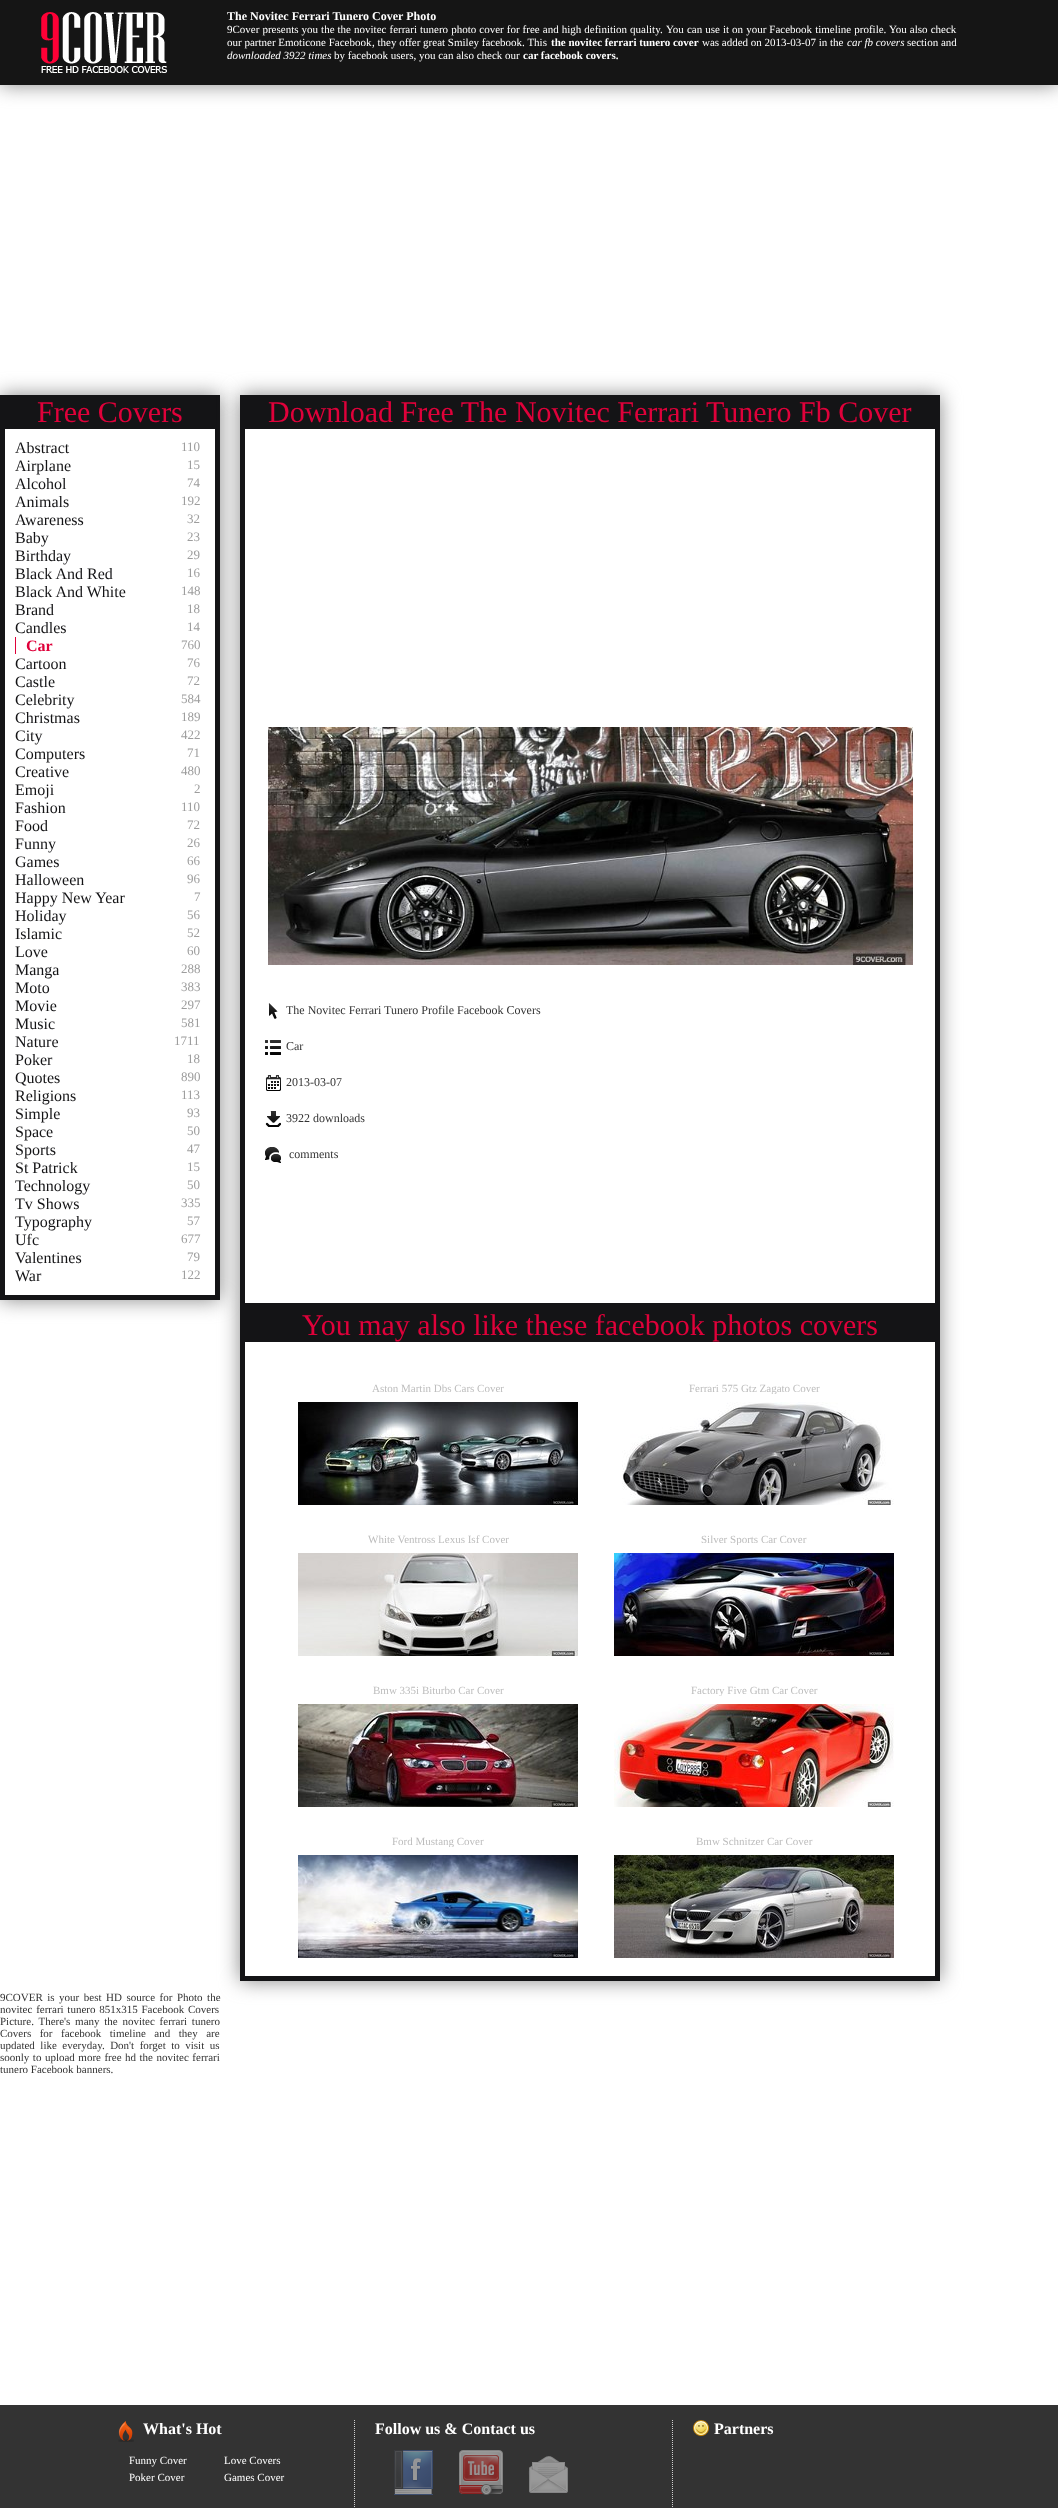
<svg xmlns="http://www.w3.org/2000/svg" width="1058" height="2508">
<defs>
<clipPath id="clip1"><path d="M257 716h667v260h-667zm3 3h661v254h-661z" clip-rule="evenodd"/></clipPath>
<clipPath id="clip2"><path d="M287 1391h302v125h-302zm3 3h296v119h-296z" clip-rule="evenodd"/></clipPath>
<clipPath id="clip3"><path d="M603 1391h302v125h-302zm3 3h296v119h-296z" clip-rule="evenodd"/></clipPath>
<clipPath id="clip4"><path d="M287 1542h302v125h-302zm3 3h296v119h-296z" clip-rule="evenodd"/></clipPath>
<clipPath id="clip5"><path d="M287 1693h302v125h-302zm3 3h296v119h-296z" clip-rule="evenodd"/></clipPath>
<clipPath id="clip6"><path d="M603 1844h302v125h-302zm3 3h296v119h-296z" clip-rule="evenodd"/></clipPath>
</defs>
<rect width="100%" height="100%" fill="#fff"/>
<rect width="1058" height="85" fill="#888" filter="blur(10px)"/>
<rect width="1058" height="85" fill="#151515"/>
<image x="41" y="12" width="126" height="61" href="media/1.png"/>
<text x="227" y="20" style="font-family:Liberation Serif;font-size:12px;font-weight:bold;fill:#fff">The Novitec Ferrari Tunero Cover Photo</text>
<text x="227" y="33" word-spacing="0.3" style="font-family:Liberation Serif;font-size:11px;fill:#fff">9Cover presents you the the novitec ferrari tunero photo cover for free and high definition quality.</text>
<text x="666" y="33" word-spacing="0.3" style="font-family:Liberation Serif;font-size:11px;fill:#fff">You can use it on your Facebook timeline profile. You also check</text>
<text x="227" y="46" style="font-family:Liberation Serif;font-size:11px;fill:#fff">our partner Emoticone Facebook</text>
<text x="372" y="46" style="font-family:Liberation Serif;font-size:11px;fill:#fff">, they offer great Smiley facebook. This</text>
<text x="551" y="46" style="font-family:Liberation Serif;font-size:11px;font-weight:bold;fill:#fff">the novitec ferrari tunero cover</text>
<text x="702" y="46" style="font-family:Liberation Serif;font-size:11px;fill:#fff">was added on 2013-03-07 in the</text>
<text x="847" y="46" style="font-family:Liberation Serif;font-size:11px;font-style:italic;fill:#fff">car fb covers</text>
<text x="907" y="46" style="font-family:Liberation Serif;font-size:11px;fill:#fff">section and</text>
<text x="227" y="59" style="font-family:Liberation Serif;font-size:11px;font-style:italic;fill:#fff">downloaded 3922 times</text>
<text x="334" y="59" style="font-family:Liberation Serif;font-size:11px;fill:#fff">by facebook users, you can also check our</text>
<text x="523" y="59" style="font-family:Liberation Serif;font-size:11px;font-weight:bold;fill:#fff">car facebook covers.</text>
<rect y="395" width="220" height="905" fill="#888" filter="blur(10px)"/>
<rect y="395" width="220" height="905" fill="#141416"/>
<text x="37" y="422" style="font-family:Liberation Serif;font-size:30px;fill:#df013a">Free Covers</text>
<rect x="5" y="429" width="210" height="866" fill="#fff"/>
<text x="15" y="453" style="font-family:Liberation Serif;font-size:16px;fill:#141416">Abstract</text>
<text x="181" y="451" style="font-family:Liberation Serif;font-size:13px;fill:#9d9d9d">110</text>
<text x="15" y="471" style="font-family:Liberation Serif;font-size:16px;fill:#141416">Airplane</text>
<text x="187" y="469" style="font-family:Liberation Serif;font-size:13px;fill:#9d9d9d">15</text>
<text x="15" y="489" style="font-family:Liberation Serif;font-size:16px;fill:#141416">Alcohol</text>
<text x="187" y="487" style="font-family:Liberation Serif;font-size:13px;fill:#9d9d9d">74</text>
<text x="15" y="507" style="font-family:Liberation Serif;font-size:16px;fill:#141416">Animals</text>
<text x="181" y="505" style="font-family:Liberation Serif;font-size:13px;fill:#9d9d9d">192</text>
<text x="15" y="525" style="font-family:Liberation Serif;font-size:16px;fill:#141416">Awareness</text>
<text x="187" y="523" style="font-family:Liberation Serif;font-size:13px;fill:#9d9d9d">32</text>
<text x="15" y="543" style="font-family:Liberation Serif;font-size:16px;fill:#141416">Baby</text>
<text x="187" y="541" style="font-family:Liberation Serif;font-size:13px;fill:#9d9d9d">23</text>
<text x="15" y="561" style="font-family:Liberation Serif;font-size:16px;fill:#141416">Birthday</text>
<text x="187" y="559" style="font-family:Liberation Serif;font-size:13px;fill:#9d9d9d">29</text>
<text x="15" y="579" style="font-family:Liberation Serif;font-size:16px;fill:#141416">Black And Red</text>
<text x="187" y="577" style="font-family:Liberation Serif;font-size:13px;fill:#9d9d9d">16</text>
<text x="15" y="597" style="font-family:Liberation Serif;font-size:16px;fill:#141416">Black And White</text>
<text x="181" y="595" style="font-family:Liberation Serif;font-size:13px;fill:#9d9d9d">148</text>
<text x="15" y="615" style="font-family:Liberation Serif;font-size:16px;fill:#141416">Brand</text>
<text x="187" y="613" style="font-family:Liberation Serif;font-size:13px;fill:#9d9d9d">18</text>
<text x="15" y="633" style="font-family:Liberation Serif;font-size:16px;fill:#141416">Candles</text>
<text x="187" y="631" style="font-family:Liberation Serif;font-size:13px;fill:#9d9d9d">14</text>
<text x="26" y="651" style="font-family:Liberation Serif;font-size:16px;font-weight:bold;fill:#df013a">Car</text>
<rect x="15" y="637" width="1" height="17" fill="#df013a"/>
<text x="181" y="649" style="font-family:Liberation Serif;font-size:13px;fill:#9d9d9d">760</text>
<text x="15" y="669" style="font-family:Liberation Serif;font-size:16px;fill:#141416">Cartoon</text>
<text x="187" y="667" style="font-family:Liberation Serif;font-size:13px;fill:#9d9d9d">76</text>
<text x="15" y="687" style="font-family:Liberation Serif;font-size:16px;fill:#141416">Castle</text>
<text x="187" y="685" style="font-family:Liberation Serif;font-size:13px;fill:#9d9d9d">72</text>
<text x="15" y="705" style="font-family:Liberation Serif;font-size:16px;fill:#141416">Celebrity</text>
<text x="181" y="703" style="font-family:Liberation Serif;font-size:13px;fill:#9d9d9d">584</text>
<text x="15" y="723" style="font-family:Liberation Serif;font-size:16px;fill:#141416">Christmas</text>
<text x="181" y="721" style="font-family:Liberation Serif;font-size:13px;fill:#9d9d9d">189</text>
<text x="15" y="741" style="font-family:Liberation Serif;font-size:16px;fill:#141416">City</text>
<text x="181" y="739" style="font-family:Liberation Serif;font-size:13px;fill:#9d9d9d">422</text>
<text x="15" y="759" style="font-family:Liberation Serif;font-size:16px;fill:#141416">Computers</text>
<text x="187" y="757" style="font-family:Liberation Serif;font-size:13px;fill:#9d9d9d">71</text>
<text x="15" y="777" style="font-family:Liberation Serif;font-size:16px;fill:#141416">Creative</text>
<text x="181" y="775" style="font-family:Liberation Serif;font-size:13px;fill:#9d9d9d">480</text>
<text x="15" y="795" style="font-family:Liberation Serif;font-size:16px;fill:#141416">Emoji</text>
<text x="194" y="793" style="font-family:Liberation Serif;font-size:13px;fill:#9d9d9d">2</text>
<text x="15" y="813" style="font-family:Liberation Serif;font-size:16px;fill:#141416">Fashion</text>
<text x="181" y="811" style="font-family:Liberation Serif;font-size:13px;fill:#9d9d9d">110</text>
<text x="15" y="831" style="font-family:Liberation Serif;font-size:16px;fill:#141416">Food</text>
<text x="187" y="829" style="font-family:Liberation Serif;font-size:13px;fill:#9d9d9d">72</text>
<text x="15" y="849" style="font-family:Liberation Serif;font-size:16px;fill:#141416">Funny</text>
<text x="187" y="847" style="font-family:Liberation Serif;font-size:13px;fill:#9d9d9d">26</text>
<text x="15" y="867" style="font-family:Liberation Serif;font-size:16px;fill:#141416">Games</text>
<text x="187" y="865" style="font-family:Liberation Serif;font-size:13px;fill:#9d9d9d">66</text>
<text x="15" y="885" style="font-family:Liberation Serif;font-size:16px;fill:#141416">Halloween</text>
<text x="187" y="883" style="font-family:Liberation Serif;font-size:13px;fill:#9d9d9d">96</text>
<text x="15" y="903" style="font-family:Liberation Serif;font-size:16px;fill:#141416">Happy New Year</text>
<text x="194" y="901" style="font-family:Liberation Serif;font-size:13px;fill:#9d9d9d">7</text>
<text x="15" y="921" style="font-family:Liberation Serif;font-size:16px;fill:#141416">Holiday</text>
<text x="187" y="919" style="font-family:Liberation Serif;font-size:13px;fill:#9d9d9d">56</text>
<text x="15" y="939" style="font-family:Liberation Serif;font-size:16px;fill:#141416">Islamic</text>
<text x="187" y="937" style="font-family:Liberation Serif;font-size:13px;fill:#9d9d9d">52</text>
<text x="15" y="957" style="font-family:Liberation Serif;font-size:16px;fill:#141416">Love</text>
<text x="187" y="955" style="font-family:Liberation Serif;font-size:13px;fill:#9d9d9d">60</text>
<text x="15" y="975" style="font-family:Liberation Serif;font-size:16px;fill:#141416">Manga</text>
<text x="181" y="973" style="font-family:Liberation Serif;font-size:13px;fill:#9d9d9d">288</text>
<text x="15" y="993" style="font-family:Liberation Serif;font-size:16px;fill:#141416">Moto</text>
<text x="181" y="991" style="font-family:Liberation Serif;font-size:13px;fill:#9d9d9d">383</text>
<text x="15" y="1011" style="font-family:Liberation Serif;font-size:16px;fill:#141416">Movie</text>
<text x="181" y="1009" style="font-family:Liberation Serif;font-size:13px;fill:#9d9d9d">297</text>
<text x="15" y="1029" style="font-family:Liberation Serif;font-size:16px;fill:#141416">Music</text>
<text x="181" y="1027" style="font-family:Liberation Serif;font-size:13px;fill:#9d9d9d">581</text>
<text x="15" y="1047" style="font-family:Liberation Serif;font-size:16px;fill:#141416">Nature</text>
<text x="174" y="1045" style="font-family:Liberation Serif;font-size:13px;fill:#9d9d9d">1711</text>
<text x="15" y="1065" style="font-family:Liberation Serif;font-size:16px;fill:#141416">Poker</text>
<text x="187" y="1063" style="font-family:Liberation Serif;font-size:13px;fill:#9d9d9d">18</text>
<text x="15" y="1083" style="font-family:Liberation Serif;font-size:16px;fill:#141416">Quotes</text>
<text x="181" y="1081" style="font-family:Liberation Serif;font-size:13px;fill:#9d9d9d">890</text>
<text x="15" y="1101" style="font-family:Liberation Serif;font-size:16px;fill:#141416">Religions</text>
<text x="181" y="1099" style="font-family:Liberation Serif;font-size:13px;fill:#9d9d9d">113</text>
<text x="15" y="1119" style="font-family:Liberation Serif;font-size:16px;fill:#141416">Simple</text>
<text x="187" y="1117" style="font-family:Liberation Serif;font-size:13px;fill:#9d9d9d">93</text>
<text x="15" y="1137" style="font-family:Liberation Serif;font-size:16px;fill:#141416">Space</text>
<text x="187" y="1135" style="font-family:Liberation Serif;font-size:13px;fill:#9d9d9d">50</text>
<text x="15" y="1155" style="font-family:Liberation Serif;font-size:16px;fill:#141416">Sports</text>
<text x="187" y="1153" style="font-family:Liberation Serif;font-size:13px;fill:#9d9d9d">47</text>
<text x="15" y="1173" style="font-family:Liberation Serif;font-size:16px;fill:#141416">St Patrick</text>
<text x="187" y="1171" style="font-family:Liberation Serif;font-size:13px;fill:#9d9d9d">15</text>
<text x="15" y="1191" style="font-family:Liberation Serif;font-size:16px;fill:#141416">Technology</text>
<text x="187" y="1189" style="font-family:Liberation Serif;font-size:13px;fill:#9d9d9d">50</text>
<text x="15" y="1209" style="font-family:Liberation Serif;font-size:16px;fill:#141416">Tv Shows</text>
<text x="181" y="1207" style="font-family:Liberation Serif;font-size:13px;fill:#9d9d9d">335</text>
<text x="15" y="1227" style="font-family:Liberation Serif;font-size:16px;fill:#141416">Typography</text>
<text x="187" y="1225" style="font-family:Liberation Serif;font-size:13px;fill:#9d9d9d">57</text>
<text x="15" y="1245" style="font-family:Liberation Serif;font-size:16px;fill:#141416">Ufc</text>
<text x="181" y="1243" style="font-family:Liberation Serif;font-size:13px;fill:#9d9d9d">677</text>
<text x="15" y="1263" style="font-family:Liberation Serif;font-size:16px;fill:#141416">Valentines</text>
<text x="187" y="1261" style="font-family:Liberation Serif;font-size:13px;fill:#9d9d9d">79</text>
<text x="15" y="1281" style="font-family:Liberation Serif;font-size:16px;fill:#141416">War</text>
<text x="181" y="1279" style="font-family:Liberation Serif;font-size:13px;fill:#9d9d9d">122</text>
<rect x="240" y="395" width="700" height="1586" fill="#888" filter="blur(10px)"/>
<rect x="240" y="395" width="700" height="1586" fill="#141416"/>
<text x="268" y="422" style="font-family:Liberation Serif;font-size:30px;fill:#df013a">Download Free The Novitec Ferrari Tunero Fb Cover</text>
<rect x="245" y="429" width="690" height="874" fill="#fff"/>
<g clip-path="url(#clip1)">
<rect x="260" y="719" width="661" height="254" fill="#888" filter="blur(0.5px)"/>
</g>
<image x="268" y="727" width="645" height="238" href="media/2.png"/>
<image x="268" y="1003" width="10" height="16" href="media/3.png"/>
<text x="286" y="1014" style="font-family:Liberation Serif;font-size:12px;fill:#333">The Novitec Ferrari Tunero Profile Facebook Covers</text>
<image x="265" y="1040" width="16" height="15" href="media/4.png"/>
<text x="286" y="1050" style="font-family:Liberation Serif;font-size:12px;fill:#333">Car</text>
<image x="265" y="1075" width="16" height="16" href="media/5.png"/>
<text x="286" y="1086" style="font-family:Liberation Serif;font-size:12px;fill:#333">2013-03-07</text>
<image x="265" y="1111" width="16" height="16" href="media/6.png"/>
<text x="286" y="1122" style="font-family:Liberation Serif;font-size:12px;fill:#333">3922 downloads</text>
<image x="265" y="1147" width="16" height="16" href="media/7.png"/>
<text x="289" y="1158" style="font-family:Liberation Serif;font-size:12px;fill:#333">comments</text>
<text x="302" y="1335" style="font-family:Liberation Serif;font-size:30px;fill:#df013a">You may also like these facebook photos covers</text>
<rect x="245" y="1342" width="690" height="634" fill="#fff"/>
<text x="372" y="1392" style="font-family:Liberation Serif;font-size:11px;fill:#bdbdbd">Aston Martin Dbs Cars Cover</text>
<g clip-path="url(#clip2)">
<rect x="290" y="1394" width="296" height="119" fill="#888" filter="blur(0.5px)"/>
</g>
<image x="298" y="1402" width="280" height="103" href="media/8.png"/>
<text x="689" y="1392" style="font-family:Liberation Serif;font-size:11px;fill:#bdbdbd">Ferrari 575 Gtz Zagato Cover</text>
<g clip-path="url(#clip3)">
<rect x="606" y="1394" width="296" height="119" fill="#888" filter="blur(0.5px)"/>
</g>
<rect x="610" y="1398" width="288" height="111" fill="none" stroke="#fff" stroke-width="8"/>
<image x="622" y="1402" width="272" height="103" href="media/9.png"/>
<text x="368" y="1543" style="font-family:Liberation Serif;font-size:11px;fill:#bdbdbd">White Ventross Lexus Isf Cover</text>
<g clip-path="url(#clip4)">
<rect x="290" y="1545" width="296" height="119" fill="#888" filter="blur(0.5px)"/>
</g>
<image x="298" y="1553" width="280" height="103" href="media/10.png"/>
<text x="701" y="1543" style="font-family:Liberation Serif;font-size:11px;fill:#bdbdbd">Silver Sports Car Cover</text>
<rect x="606" y="1545" width="296" height="119" fill="#888" filter="blur(0.5px)"/>
<rect x="610" y="1549" width="288" height="111" fill="none" stroke="#fff" stroke-width="8"/>
<image x="614" y="1553" width="280" height="103" href="media/11.png"/>
<text x="373" y="1694" style="font-family:Liberation Serif;font-size:11px;fill:#bdbdbd">Bmw 335i Biturbo Car Cover</text>
<g clip-path="url(#clip5)">
<rect x="290" y="1696" width="296" height="119" fill="#888" filter="blur(0.5px)"/>
</g>
<image x="298" y="1704" width="280" height="103" href="media/12.png"/>
<text x="691" y="1694" style="font-family:Liberation Serif;font-size:11px;fill:#bdbdbd">Factory Five Gtm Car Cover</text>
<rect x="606" y="1696" width="296" height="119" fill="#888" filter="blur(0.5px)"/>
<rect x="610" y="1700" width="288" height="111" fill="none" stroke="#fff" stroke-width="8"/>
<image x="614" y="1704" width="280" height="103" href="media/13.png"/>
<text x="392" y="1845" style="font-family:Liberation Serif;font-size:11px;fill:#bdbdbd">Ford Mustang Cover</text>
<rect x="290" y="1847" width="296" height="119" fill="#888" filter="blur(0.5px)"/>
<rect x="294" y="1851" width="288" height="111" fill="none" stroke="#fff" stroke-width="8"/>
<image x="298" y="1855" width="280" height="103" href="media/14.png"/>
<text x="696" y="1845" style="font-family:Liberation Serif;font-size:11px;fill:#bdbdbd">Bmw Schnitzer Car Cover</text>
<g clip-path="url(#clip6)">
<rect x="606" y="1847" width="296" height="119" fill="#888" filter="blur(0.5px)"/>
</g>
<image x="614" y="1855" width="280" height="103" href="media/15.png"/>
<text x="0" y="2001" word-spacing="1.75" style="font-family:Liberation Serif;font-size:11px;fill:#333">9COVER is your best HD source for Photo the</text>
<text x="0" y="2013" word-spacing="1" style="font-family:Liberation Serif;font-size:11px;fill:#333">novitec ferrari tunero 851x315 Facebook Covers</text>
<text x="0" y="2025" word-spacing="2" style="font-family:Liberation Serif;font-size:11px;fill:#333">Picture. There's many the novitec ferrari tunero</text>
<text x="0" y="2037" word-spacing="5.75" style="font-family:Liberation Serif;font-size:11px;fill:#333">Covers for facebook timeline and they are</text>
<text x="0" y="2049" word-spacing="2.75" style="font-family:Liberation Serif;font-size:11px;fill:#333">updated like everyday. Don't forget to visit us</text>
<text x="0" y="2061" word-spacing="0.75" style="font-family:Liberation Serif;font-size:11px;fill:#333">soonly to upload more free hd the novitec ferrari</text>
<text x="0" y="2073" style="font-family:Liberation Serif;font-size:11px;fill:#333">tunero Facebook banners.</text>
<rect y="2405" width="1058" height="103" fill="#333"/>
<path d="M354.5 2420v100" fill="none" stroke="#cfcfcf" stroke-dasharray="1 1"/>
<image x="118" y="2421" width="16" height="21" href="media/16.png"/>
<text x="143" y="2434" style="font-family:Liberation Serif;font-size:16px;font-weight:bold;fill:#fff">What's Hot</text>
<text x="129" y="2464" style="font-family:Liberation Serif;font-size:11px;fill:#fff">Funny Cover</text>
<text x="224" y="2464" style="font-family:Liberation Serif;font-size:11px;fill:#fff">Love Covers</text>
<text x="129" y="2481" style="font-family:Liberation Serif;font-size:11px;fill:#fff">Poker Cover</text>
<text x="224" y="2481" style="font-family:Liberation Serif;font-size:11px;fill:#fff">Games Cover</text>
<path d="M672.5 2420v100" fill="none" stroke="#cfcfcf" stroke-dasharray="1 1"/>
<text x="375" y="2434" style="font-family:Liberation Serif;font-size:16px;font-weight:bold;fill:#fff">Follow us &amp; Contact us</text>
<image x="394" y="2450" width="39" height="45" href="media/17.png"/>
<image x="459" y="2450" width="44" height="45" href="media/18.png"/>
<image x="528" y="2456" width="40" height="37" href="media/19.png"/>
<image x="693" y="2420" width="16" height="16" href="media/20.png"/>
<text x="714" y="2434" style="font-family:Liberation Serif;font-size:16px;font-weight:bold;fill:#fff">Partners</text>
</svg>
